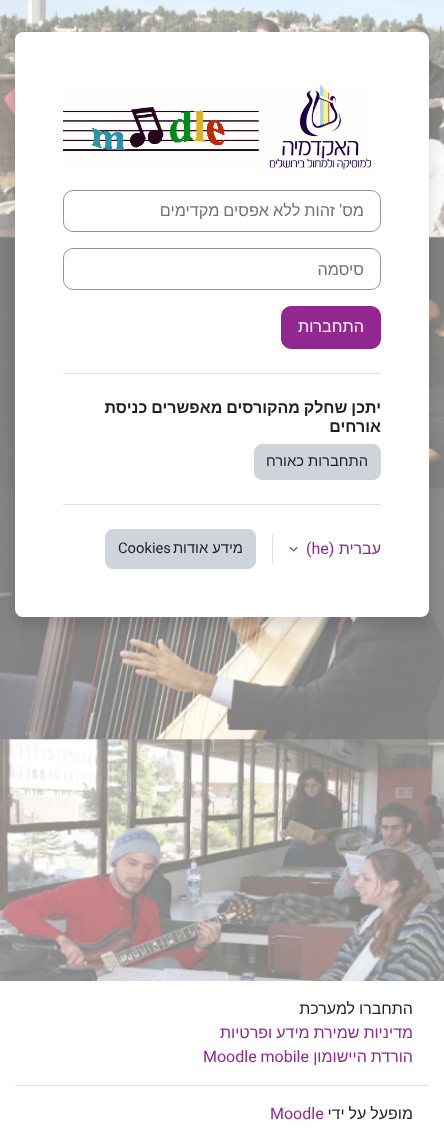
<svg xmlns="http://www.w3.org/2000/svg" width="444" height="1142">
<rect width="100%" height="100%" fill="#fff"/>
<image x="0" y="0" width="444" height="981" href="media/1.png"/>
<rect x="15" y="40" width="414" height="585" rx="8" fill="#00000026" filter="blur(8px)"/>
<rect x="15" y="32" width="414" height="585" rx="8" fill="#fff"/>
<image x="63" y="85" width="311" height="89" href="media/2.png"/>
<rect x="63.5" y="190.5" width="317" height="41" rx="9.5" fill="none" stroke="#8f959e"/>
<text x="342" y="216" style="font-family:Roboto;font-size:16.25px;direction:rtl;fill:#6a737b">'</text>
<text x="335" y="216" word-spacing="-0.5" style="font-family:Liberation Sans;font-size:16.25px;direction:rtl;fill:#6a737b">זהות ללא אפסים מקדימים</text>
<text x="364" y="216" style="font-family:Liberation Sans;font-size:16.25px;direction:rtl;fill:#6a737b">מס</text>
<rect x="63.5" y="248.5" width="317" height="41" rx="9.5" fill="none" stroke="#8f959e"/>
<text x="364" y="275" style="font-family:Liberation Sans;font-size:16.25px;direction:rtl;fill:#6a737b">סיסמה</text>
<rect x="281.5" y="306.5" width="99" height="42" rx="9.5" fill="#92278f" stroke="#92278f"/>
<text x="364" y="332" style="font-family:Liberation Sans;font-size:16.25px;direction:rtl;fill:#fff">התחברות</text>
<rect x="63" y="373" width="318" height="1" fill="#dee2e6"/>
<text x="381" y="413" word-spacing="-0.5" style="font-family:Liberation Sans;font-size:16px;font-weight:bold;direction:rtl;fill:#1d2125">יתכן שחלק מהקורסים מאפשרים כניסת</text>
<text x="381" y="432" style="font-family:Liberation Sans;font-size:16px;font-weight:bold;direction:rtl;fill:#1d2125">אורחים</text>
<rect x="254.5" y="444.5" width="126" height="35" rx="7.5" fill="#ced4da" stroke="#ced4da"/>
<text x="368" y="466" style="font-family:Liberation Sans;font-size:14.75px;direction:rtl;fill:#1d2125">התחברות כאורח</text>
<rect x="63" y="504" width="318" height="1" fill="#dee2e6"/>
<text x="381" y="554" style="font-family:Liberation Sans;font-size:16px;direction:rtl;fill:#92278f">עברית</text>
<text x="306" y="554" style="font-family:Roboto;font-size:16px;fill:#92278f">(he)</text>
<image x="289" y="547" width="9" height="5" href="media/3.png"/>
<rect x="272" y="534" width="1" height="30" fill="#dee2e6"/>
<rect x="105.5" y="529.5" width="150" height="39" rx="7.5" fill="#ced4da" stroke="#ced4da"/>
<text x="243" y="553" style="font-family:Liberation Sans;font-size:14.75px;direction:rtl;fill:#1d2125">מידע אודות</text>
<text x="118" y="553" style="font-family:Roboto;font-size:14.75px;fill:#1d2125">Cookies</text>
<rect x="15" y="1085" width="414" height="1" fill="#dee2e6"/>
<text x="413" y="1014" word-spacing="-0.5" style="font-family:Liberation Sans;font-size:16px;direction:rtl;fill:#1d2125">התחברו למערכת</text>
<text x="413" y="1038" word-spacing="-0.5" style="font-family:Liberation Sans;font-size:16px;direction:rtl;fill:#92278f">מדיניות שמירת מידע ופרטיות</text>
<text x="413" y="1062" word-spacing="-0.5" style="font-family:Liberation Sans;font-size:16px;direction:rtl;fill:#92278f">הורדת היישומון</text>
<text x="203" y="1062" style="font-family:Roboto;font-size:16px;fill:#92278f">Moodle mobile</text>
<text x="413" y="1119" word-spacing="-0.5" style="font-family:Liberation Sans;font-size:16px;direction:rtl;fill:#1d2125">מופעל על ידי</text>
<text x="270" y="1119" style="font-family:Roboto;font-size:16px;fill:#92278f">Moodle</text>
</svg>
